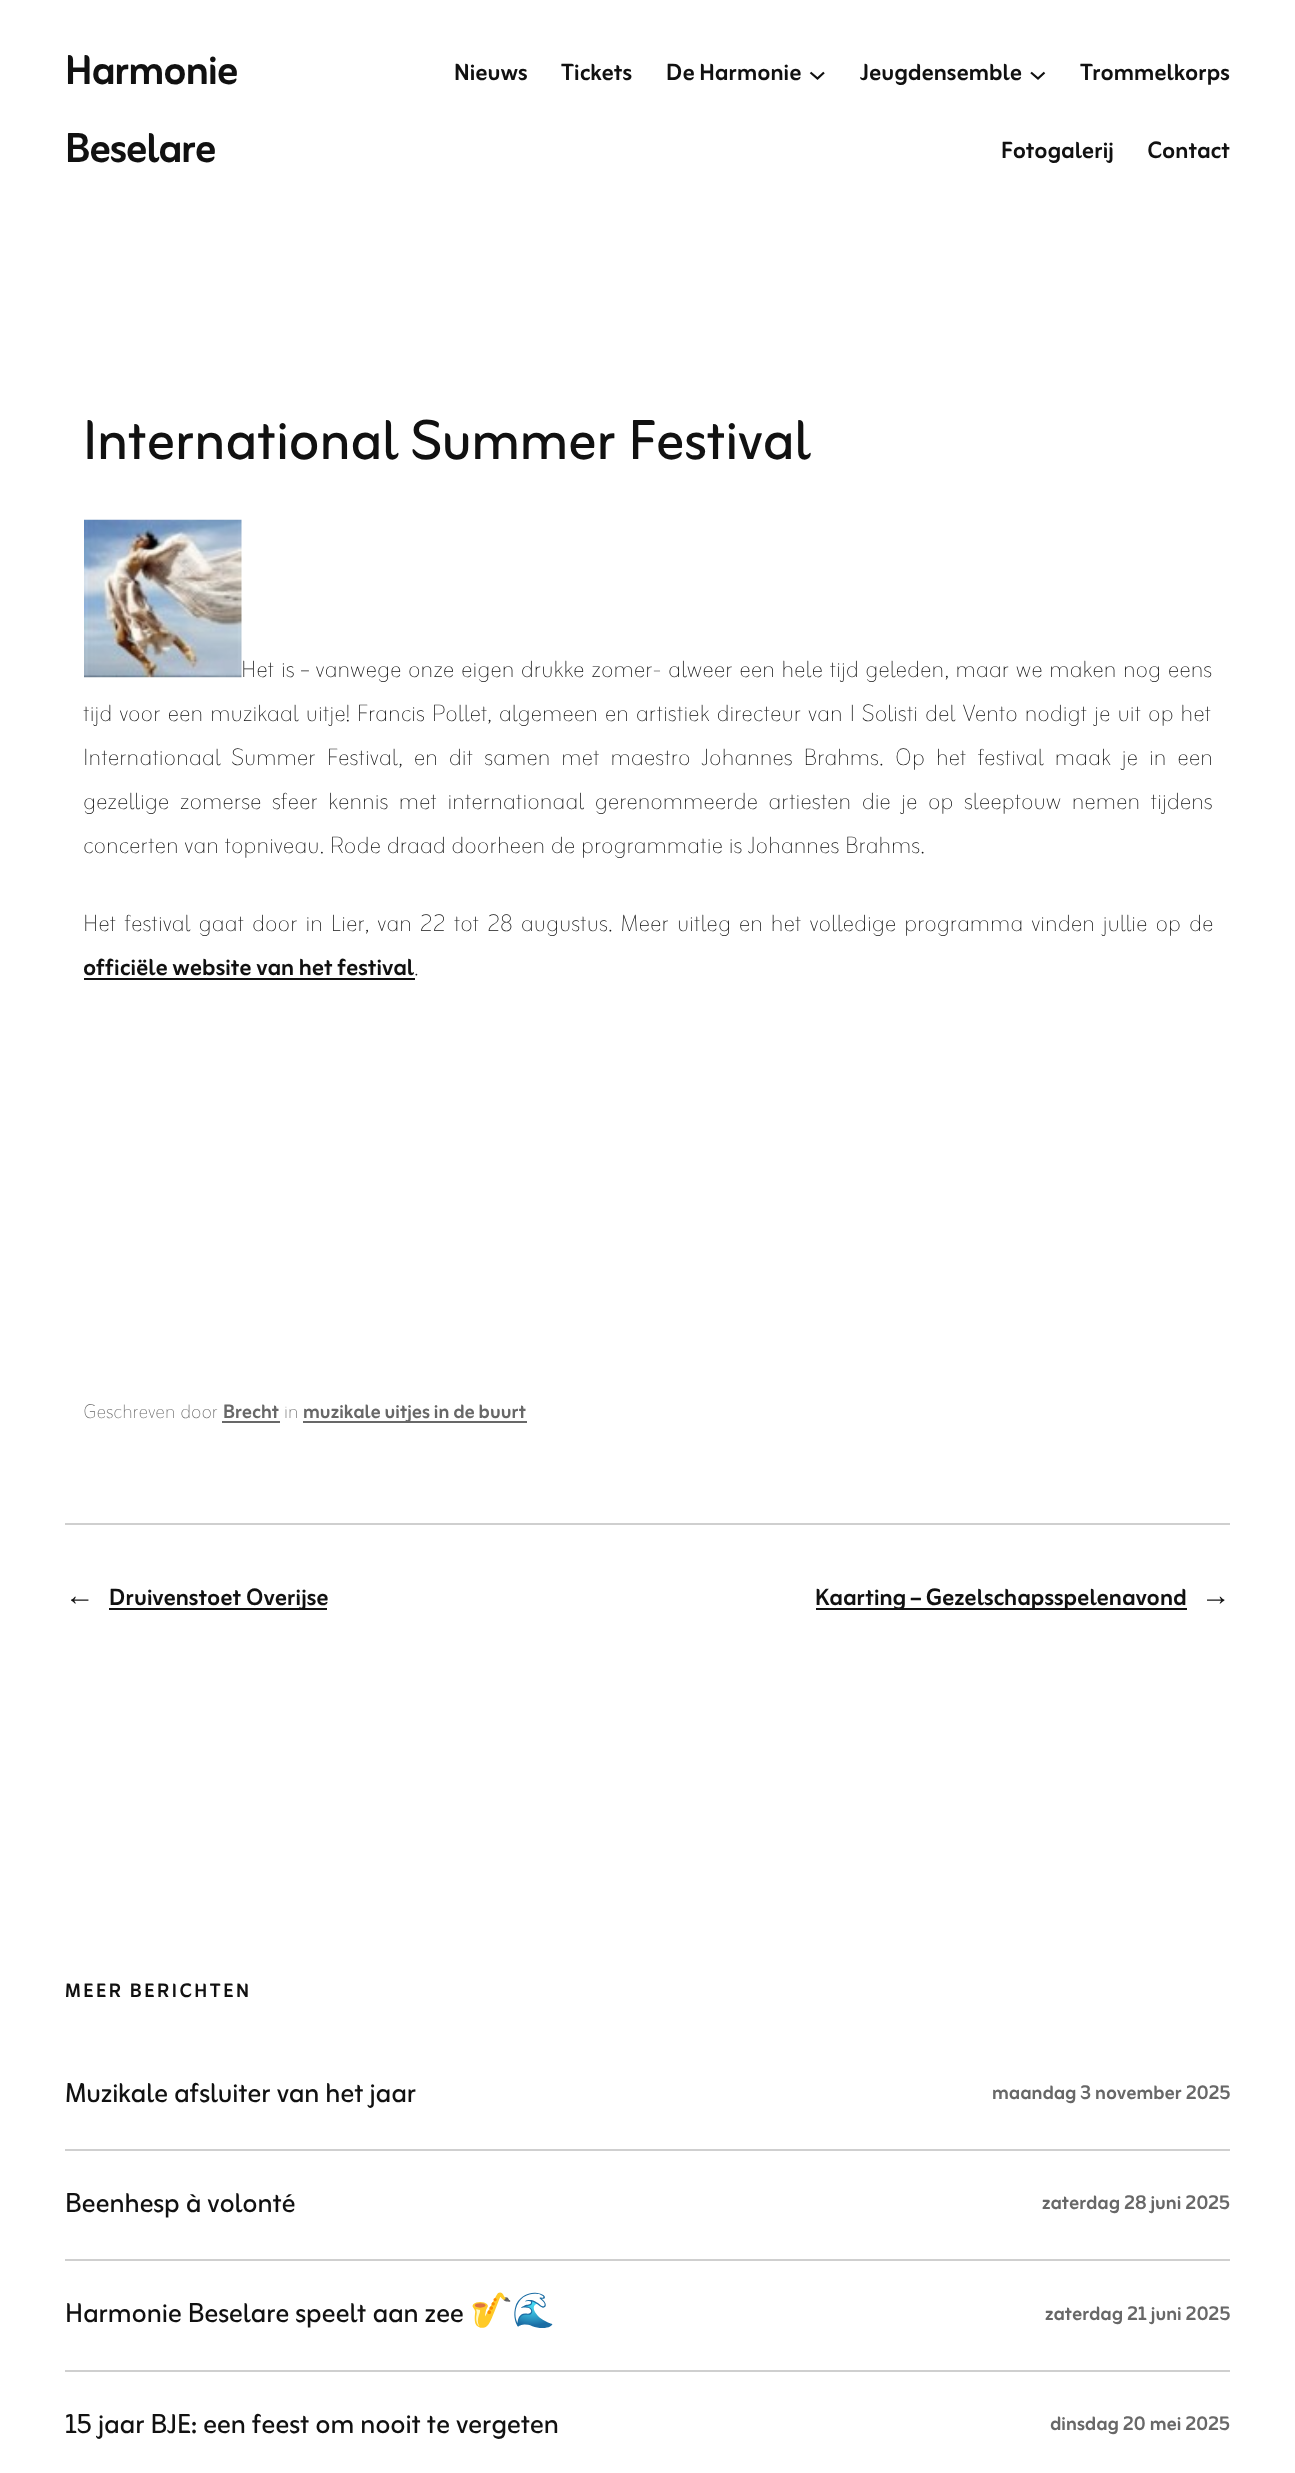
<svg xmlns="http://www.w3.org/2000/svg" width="1295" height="2473">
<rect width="100%" height="100%" fill="#fff"/>
<text x="65" y="84" style="font-family:Zain;font-size:52px;font-weight:bold;letter-spacing:-1px;fill:#111">Harmonie</text>
<text x="65" y="162" style="font-family:Zain;font-size:52px;font-weight:bold;letter-spacing:-1px;fill:#111">Beselare</text>
<text x="454" y="80" style="font-family:Zain;font-size:29.45px;font-weight:bold;fill:#111">Nieuws</text>
<text x="561" y="80" style="font-family:Zain;font-size:29.45px;font-weight:bold;fill:#111">Tickets</text>
<text x="666" y="80" style="font-family:Zain;font-size:29.45px;font-weight:bold;fill:#111">De Harmonie</text>
<path d="M810.5 72.5l7 6l6.5-6" fill="none" stroke="#111" stroke-width="2.2"/>
<text x="860" y="80" style="font-family:Zain;font-size:29.45px;font-weight:bold;fill:#111">Jeugdensemble</text>
<path d="M1031 72.5l7 6l6.5-6" fill="none" stroke="#111" stroke-width="2.2"/>
<text x="1080" y="80" style="font-family:Zain;font-size:29.45px;font-weight:bold;fill:#111">Trommelkorps</text>
<text x="1001" y="158" style="font-family:Zain;font-size:29.45px;font-weight:bold;fill:#111">Fotogalerij</text>
<text x="1147" y="158" style="font-family:Zain;font-size:29.45px;font-weight:bold;fill:#111">Contact</text>
<text x="83" y="459" style="font-family:Zain;font-size:70px;letter-spacing:-0.2px;fill:#111">International Summer Festival</text>
<image x="84" y="519" width="158" height="159" href="media/1.png"/>
<text x="241" y="677" word-spacing="0.9" style="font-family:Zain;font-size:29.45px;font-weight:200;fill:#111">Het is – vanwege onze eigen drukke zomer- alweer een hele tijd geleden, maar we maken nog eens</text>
<text x="83" y="721" word-spacing="1.25" style="font-family:Zain;font-size:29.45px;font-weight:200;fill:#111">tijd voor een muzikaal uitje! Francis Pollet, algemeen en artistiek directeur van I Solisti del Vento nodigt je uit op het</text>
<text x="83" y="765" word-spacing="5.25" style="font-family:Zain;font-size:29.45px;font-weight:200;fill:#111">Internationaal Summer Festival, en dit samen met maestro Johannes Brahms. Op het festival maak je in een</text>
<text x="83" y="809" word-spacing="4.75" style="font-family:Zain;font-size:29.45px;font-weight:200;fill:#111">gezellige zomerse sfeer kennis met internationaal gerenommeerde artiesten die je op sleeptouw nemen tijdens</text>
<text x="83" y="853" style="font-family:Zain;font-size:29.45px;font-weight:200;fill:#111">concerten van topniveau. Rode draad doorheen de programmatie is Johannes Brahms.</text>
<text x="83" y="931" word-spacing="2.25" style="font-family:Zain;font-size:29.45px;font-weight:200;fill:#111">Het festival gaat door in Lier, van 22 tot 28 augustus. Meer uitleg en het volledige programma vinden jullie op de</text>
<text x="83" y="975" style="font-family:Zain;font-size:29.45px;font-weight:bold;fill:#111">officiële website van het festival</text>
<rect x="84" y="978" width="331" height="2" fill="#111"/>
<text x="414" y="975" style="font-family:Zain;font-size:29.45px;font-weight:200;fill:#111">.</text>
<text x="83" y="1418" style="font-family:Zain;font-size:24.5px;font-weight:200;fill:#686868">Geschreven door</text>
<text x="223" y="1418" style="font-family:Zain;font-size:24.5px;font-weight:bold;fill:#686868">Brecht</text>
<rect x="222" y="1421" width="58" height="2" fill="#686868"/>
<text x="284" y="1418" style="font-family:Zain;font-size:24.5px;font-weight:200;fill:#686868">in</text>
<rect x="303" y="1421" width="224" height="2" fill="#686868"/>
<text x="303" y="1418" style="font-family:Zain;font-size:24.5px;font-weight:bold;fill:#686868">muzikale uitjes in de buurt</text>
<rect x="65" y="1523" width="1165" height="2" fill="#cfcfcf"/>
<text x="65" y="1605" style="font-family:Liberation Sans;font-size:29.45px;fill:#111">←</text>
<rect x="109" y="1608" width="218" height="2" fill="#111"/>
<text x="109" y="1605" style="font-family:Zain;font-size:29.45px;font-weight:bold;fill:#111">Druivenstoet Overijse</text>
<rect x="816" y="1608" width="371" height="2" fill="#111"/>
<text x="815" y="1605" style="font-family:Zain;font-size:29.45px;font-weight:bold;fill:#111">Kaarting – Gezelschapsspelenavond</text>
<text x="1201" y="1605" style="font-family:Liberation Sans;font-size:29.45px;fill:#111">→</text>
<text x="65" y="1997" style="font-family:Zain;font-size:24.5px;font-weight:bold;letter-spacing:2.5px;fill:#111">MEER BERICHTEN</text>
<rect x="65" y="2149" width="1165" height="2" fill="#cfcfcf"/>
<text x="65" y="2102" style="font-family:Zain;font-size:34.4px;letter-spacing:-0.2px;fill:#111">Muzikale afsluiter van het jaar</text>
<text x="992" y="2099" style="font-family:Zain;font-size:24.5px;font-weight:bold;fill:#686868">maandag 3 november 2025</text>
<rect x="65" y="2259" width="1165" height="2" fill="#cfcfcf"/>
<text x="65" y="2212" style="font-family:Zain;font-size:34.4px;letter-spacing:-0.2px;fill:#111">Beenhesp à volonté</text>
<text x="1042" y="2209" style="font-family:Zain;font-size:24.5px;font-weight:bold;fill:#686868">zaterdag 28 juni 2025</text>
<rect x="65" y="2370" width="1165" height="2" fill="#cfcfcf"/>
<text x="65" y="2322" style="font-family:Zain;font-size:34.4px;letter-spacing:-0.2px;fill:#111">Harmonie Beselare speelt aan zee</text>
<text x="470" y="2322" style="font-family:Noto Color Emoji;font-size:34.4px;letter-spacing:-0.2px;fill:#111">🎷🌊</text>
<text x="1045" y="2320" style="font-family:Zain;font-size:24.5px;font-weight:bold;fill:#686868">zaterdag 21 juni 2025</text>
<text x="65" y="2433" style="font-family:Zain;font-size:34.4px;letter-spacing:-0.2px;fill:#111">15 jaar BJE: een feest om nooit te vergeten</text>
<text x="1050" y="2430" style="font-family:Zain;font-size:24.5px;font-weight:bold;fill:#686868">dinsdag 20 mei 2025</text>
</svg>
